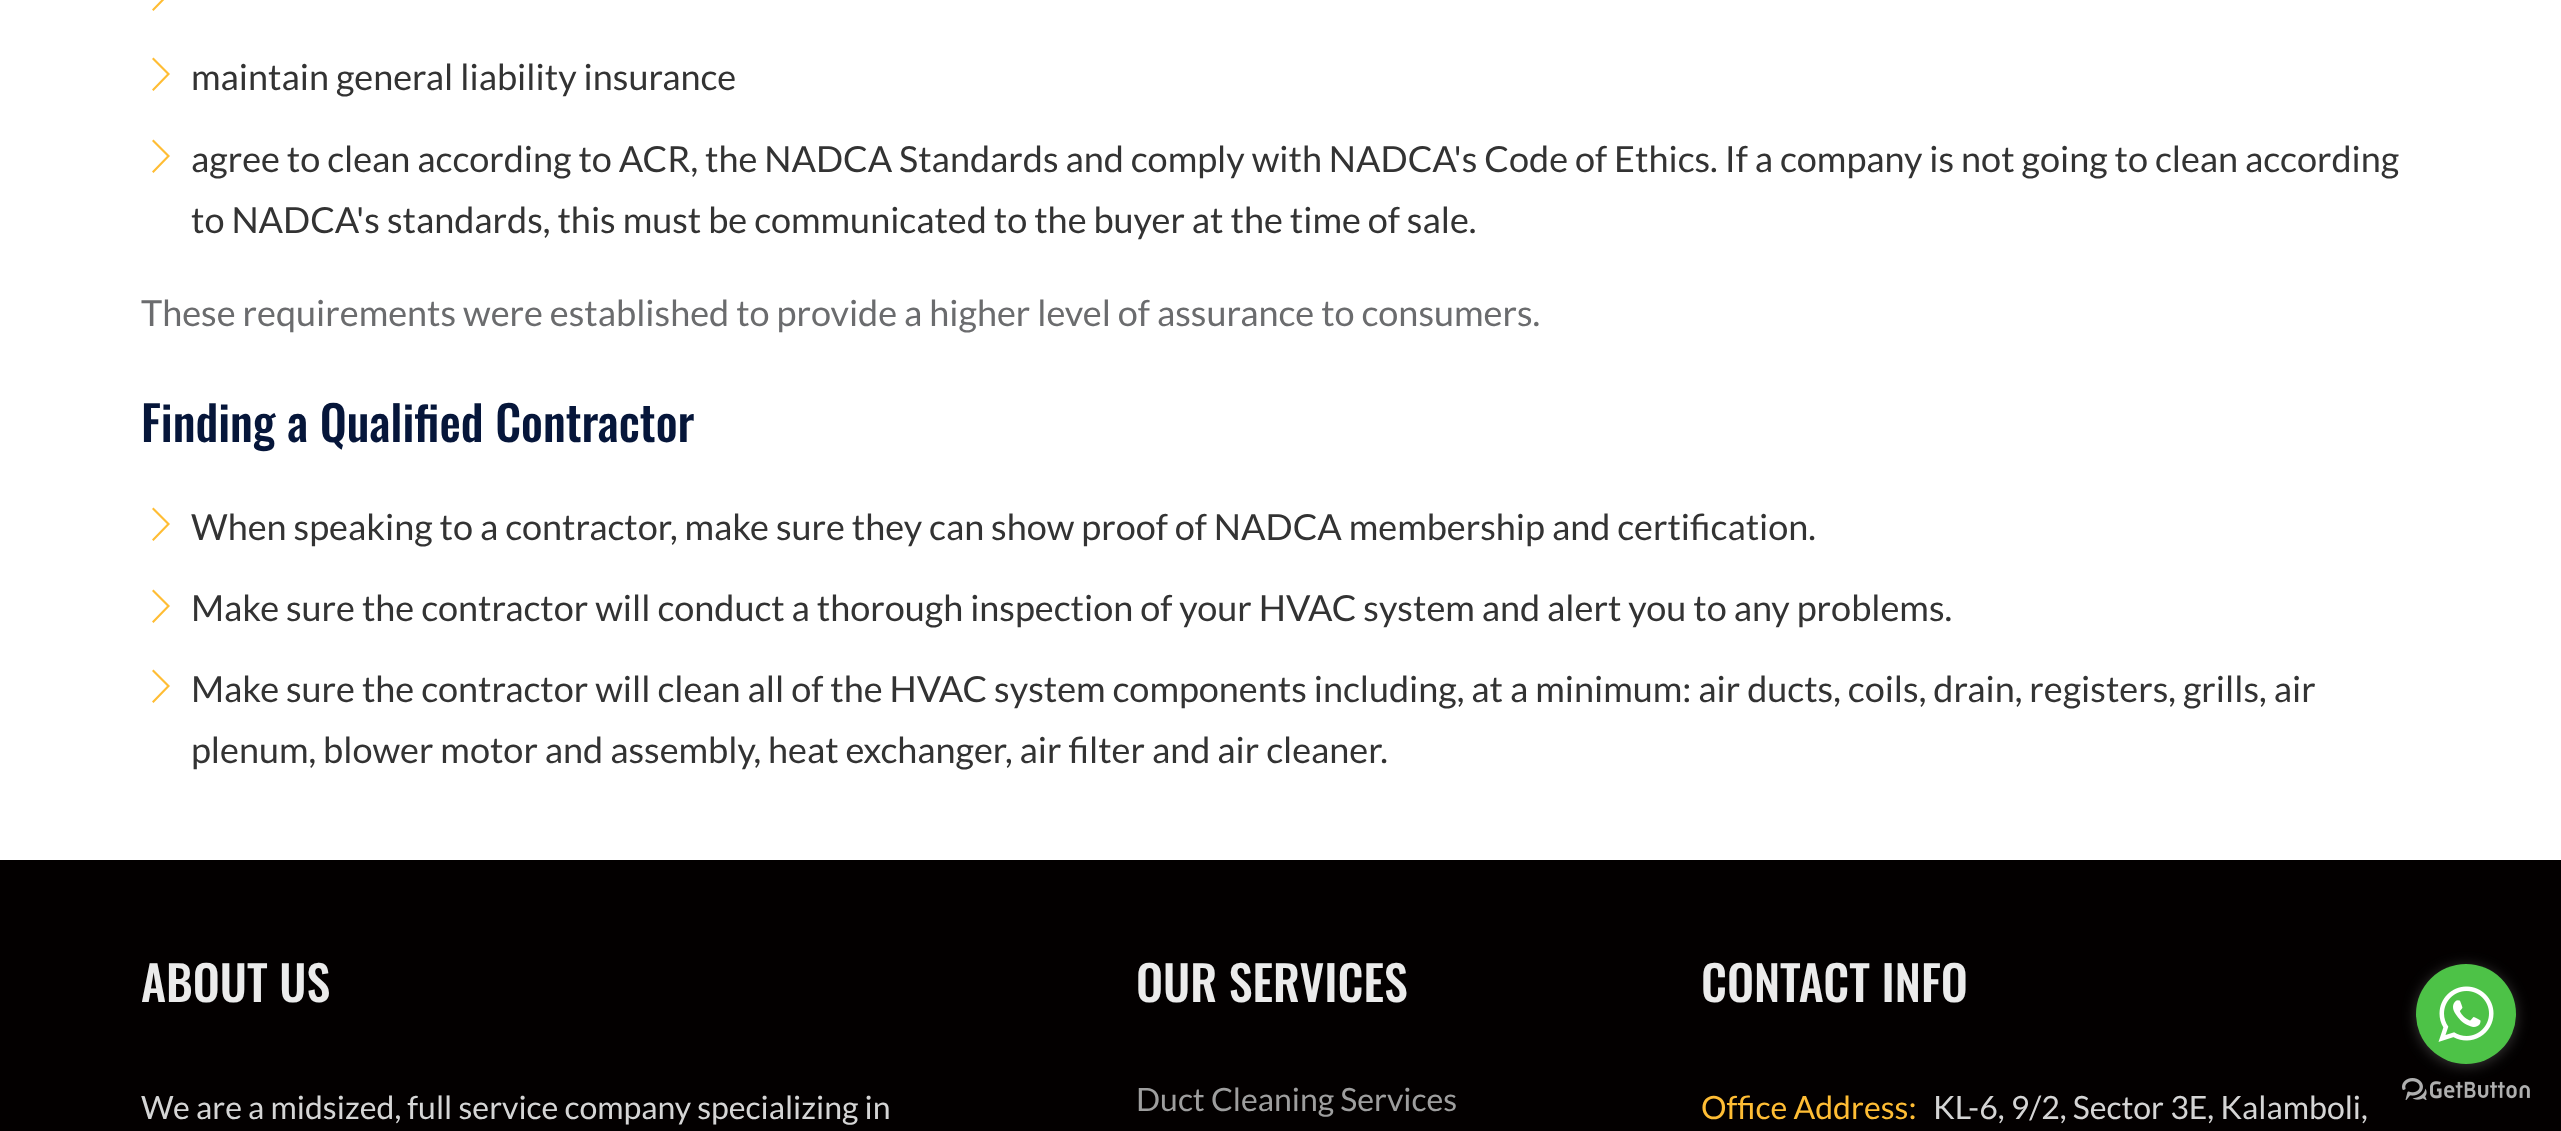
<svg xmlns="http://www.w3.org/2000/svg" width="2561" height="1131">
<rect width="100%" height="100%" fill="#fff"/>
<path d="M170-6l-16.5 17l-1.5-1.5l15-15.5l-15-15l1.5-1.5z" fill="#ffbd34"/>
<path d="M170 74l-16.5 17l-1.5-1.5l15-15.5l-15-15l1.5-1.5z" fill="#ffbd34"/>
<text x="191" y="90" style="font-family:Lato;font-size:36px;fill:#333">maintain general liability insurance</text>
<path d="M170 156l-16.5 17l-1.5-1.5l15-15.5l-15-15l1.5-1.5z" fill="#ffbd34"/>
<text x="191" y="172" style="font-family:Lato;font-size:36px;fill:#333">agree to clean according to ACR, the NADCA Standards and comply with NADCA's Code of Ethics. If a company is not going to clean according</text>
<text x="191" y="233" style="font-family:Lato;font-size:36px;fill:#333">to NADCA's standards, this must be communicated to the buyer at the time of sale.</text>
<text x="141" y="326" style="font-family:Lato;font-size:36px;fill:#6b6c6e">These requirements were established to provide a higher level of assurance to consumers.</text>
<text x="141" y="442" style="font-family:Oswald;font-size:48px;font-weight:500;fill:#06163a">Finding a Qualified Contractor</text>
<path d="M170 524l-16.5 17l-1.5-1.5l15-15.5l-15-15l1.5-1.5z" fill="#ffbd34"/>
<text x="191" y="540" style="font-family:Lato;font-size:36px;fill:#333">When speaking to a contractor, make sure they can show proof of NADCA membership and certification.</text>
<path d="M170 606l-16.5 17l-1.5-1.5l15-15.5l-15-15l1.5-1.5z" fill="#ffbd34"/>
<text x="191" y="621" style="font-family:Lato;font-size:36px;fill:#333">Make sure the contractor will conduct a thorough inspection of your HVAC system and alert you to any problems.</text>
<path d="M170 686l-16.5 17l-1.5-1.5l15-15.5l-15-15l1.5-1.5z" fill="#ffbd34"/>
<text x="191" y="702" style="font-family:Lato;font-size:36px;fill:#333">Make sure the contractor will clean all of the HVAC system components including, at a minimum: air ducts, coils, drain, registers, grills, air</text>
<text x="191" y="763" style="font-family:Lato;font-size:36px;fill:#333">plenum, blower motor and assembly, heat exchanger, air filter and air cleaner.</text>
<rect y="860" width="2561" height="271" fill="#030000"/>
<text x="141" y="1002" style="font-family:Oswald;font-size:48px;font-weight:500;fill:#ebebeb">ABOUT US</text>
<text x="141" y="1119" style="font-family:Lato;font-size:32px;fill:#d5d5d5">We are a midsized, full service company specializing in</text>
<text x="1136" y="1002" style="font-family:Oswald;font-size:48px;font-weight:500;fill:#ebebeb">OUR SERVICES</text>
<text x="1136" y="1111" style="font-family:Lato;font-size:32px;fill:#9e9e9e">Duct Cleaning Services</text>
<text x="1701" y="1002" style="font-family:Oswald;font-size:48px;font-weight:500;fill:#ebebeb">CONTACT INFO</text>
<text x="1701" y="1119" style="font-family:Lato;font-size:32px;fill:#ffbd34">Office Address:</text>
<text x="1933" y="1119" style="font-family:Lato;font-size:32px;fill:#d5d5d5">KL-6, 9/2, Sector 3E, Kalamboli,</text>
<image x="2402" y="1078" width="128" height="22" href="media/2.png"/>
<rect x="2416" y="966" width="100" height="100" rx="50" fill="#88888866" filter="blur(7px)"/>
<circle cx="2466" cy="1014" r="50" fill="#4dc247"/>
<image x="2438" y="986" width="56" height="56" href="media/1.png"/>
</svg>
